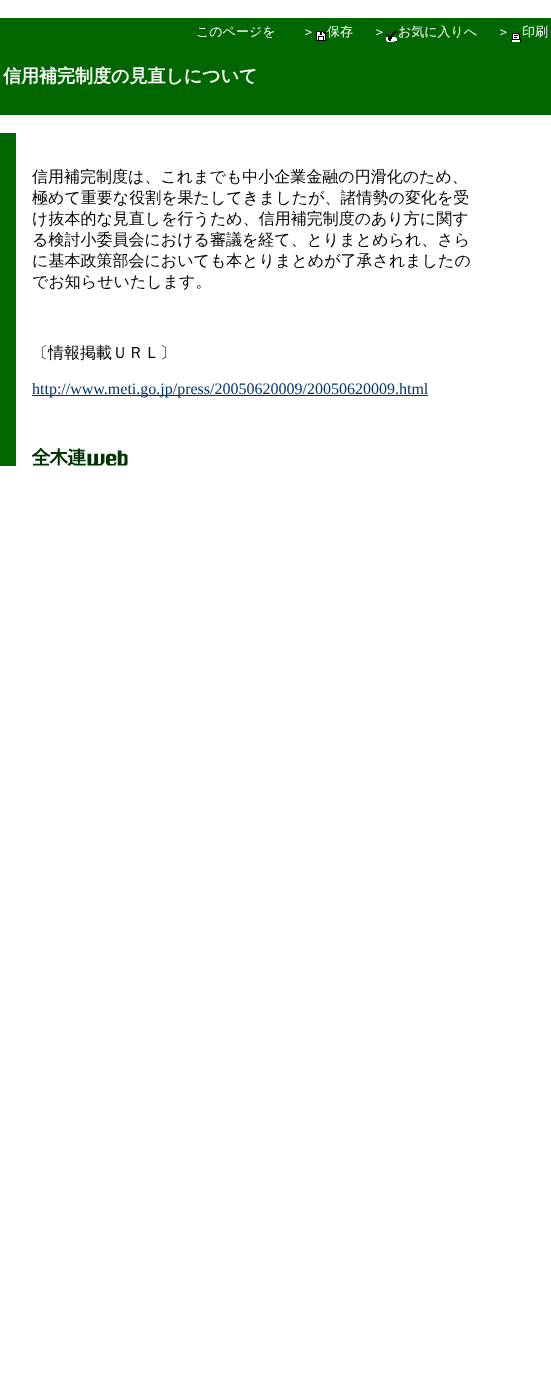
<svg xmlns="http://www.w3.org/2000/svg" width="551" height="1376">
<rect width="100%" height="100%" fill="#fff"/>
<rect y="18" width="551" height="97" fill="#060"/>
<text x="196" y="36" style="font-family:WenQuanYi Zen Hei;font-size:13px;font-weight:500;fill:#fff">このページを</text>
<text x="302" y="36" style="font-family:WenQuanYi Zen Hei;font-size:13px;font-weight:500;fill:#fff">＞</text>
<image x="316" y="31" width="10" height="10" href="media/1.png"/>
<text x="327" y="36" style="font-family:WenQuanYi Zen Hei;font-size:13px;font-weight:500;fill:#fff">保存</text>
<text x="373" y="36" style="font-family:WenQuanYi Zen Hei;font-size:13px;font-weight:500;fill:#fff">＞</text>
<image x="386" y="31" width="12" height="11" href="media/2.png"/>
<text x="398" y="36" style="font-family:WenQuanYi Zen Hei;font-size:13px;font-weight:500;fill:#fff">お気に入りへ</text>
<text x="497" y="36" style="font-family:WenQuanYi Zen Hei;font-size:13px;font-weight:500;fill:#fff">＞</text>
<image x="511" y="33" width="10" height="9" href="media/3.png"/>
<text x="522" y="36" style="font-family:WenQuanYi Zen Hei;font-size:13px;font-weight:500;fill:#fff">印刷</text>
<text x="3" y="82" style="font-family:WenQuanYi Zen Hei;font-size:18px;font-weight:bold;fill:#fff">信用補完制度の見直しについて</text>
<rect y="133" width="16" height="333" fill="#060"/>
<text x="32" y="182" style="font-family:WenQuanYi Zen Hei;font-size:16px;font-weight:500;fill:#000">信用補完制度は、これまでも中小企業金融の円滑化のため、</text>
<text x="32" y="203" style="font-family:WenQuanYi Zen Hei;font-size:16px;font-weight:500;fill:#000">極めて重要な役割を果たしてきましたが、諸情勢の変化を受</text>
<text x="32" y="224" style="font-family:WenQuanYi Zen Hei;font-size:16px;font-weight:500;fill:#000">け抜本的な見直しを行うため、信用補完制度のあり方に関す</text>
<text x="32" y="245" style="font-family:WenQuanYi Zen Hei;font-size:16px;font-weight:500;fill:#000">る検討小委員会における審議を経て、とりまとめられ、さら</text>
<text x="32" y="266" style="font-family:WenQuanYi Zen Hei;font-size:16px;font-weight:500;fill:#000">に基本政策部会においても本とりまとめが了承されましたの</text>
<text x="32" y="287" style="font-family:WenQuanYi Zen Hei;font-size:16px;font-weight:500;fill:#000">でお知らせいたします。</text>
<text x="32" y="358" style="font-family:WenQuanYi Zen Hei;font-size:16px;font-weight:500;fill:#000">〔情報掲載ＵＲＬ〕</text>
<rect x="32" y="395" width="396" height="1" fill="#036"/>
<text x="32" y="394" style="font-family:Liberation Serif;font-size:16px;fill:#036">http://www.meti.go.jp/press/20050620009/20050620009.html</text>
<image x="32" y="448" width="96" height="18" href="media/4.png"/>
</svg>
